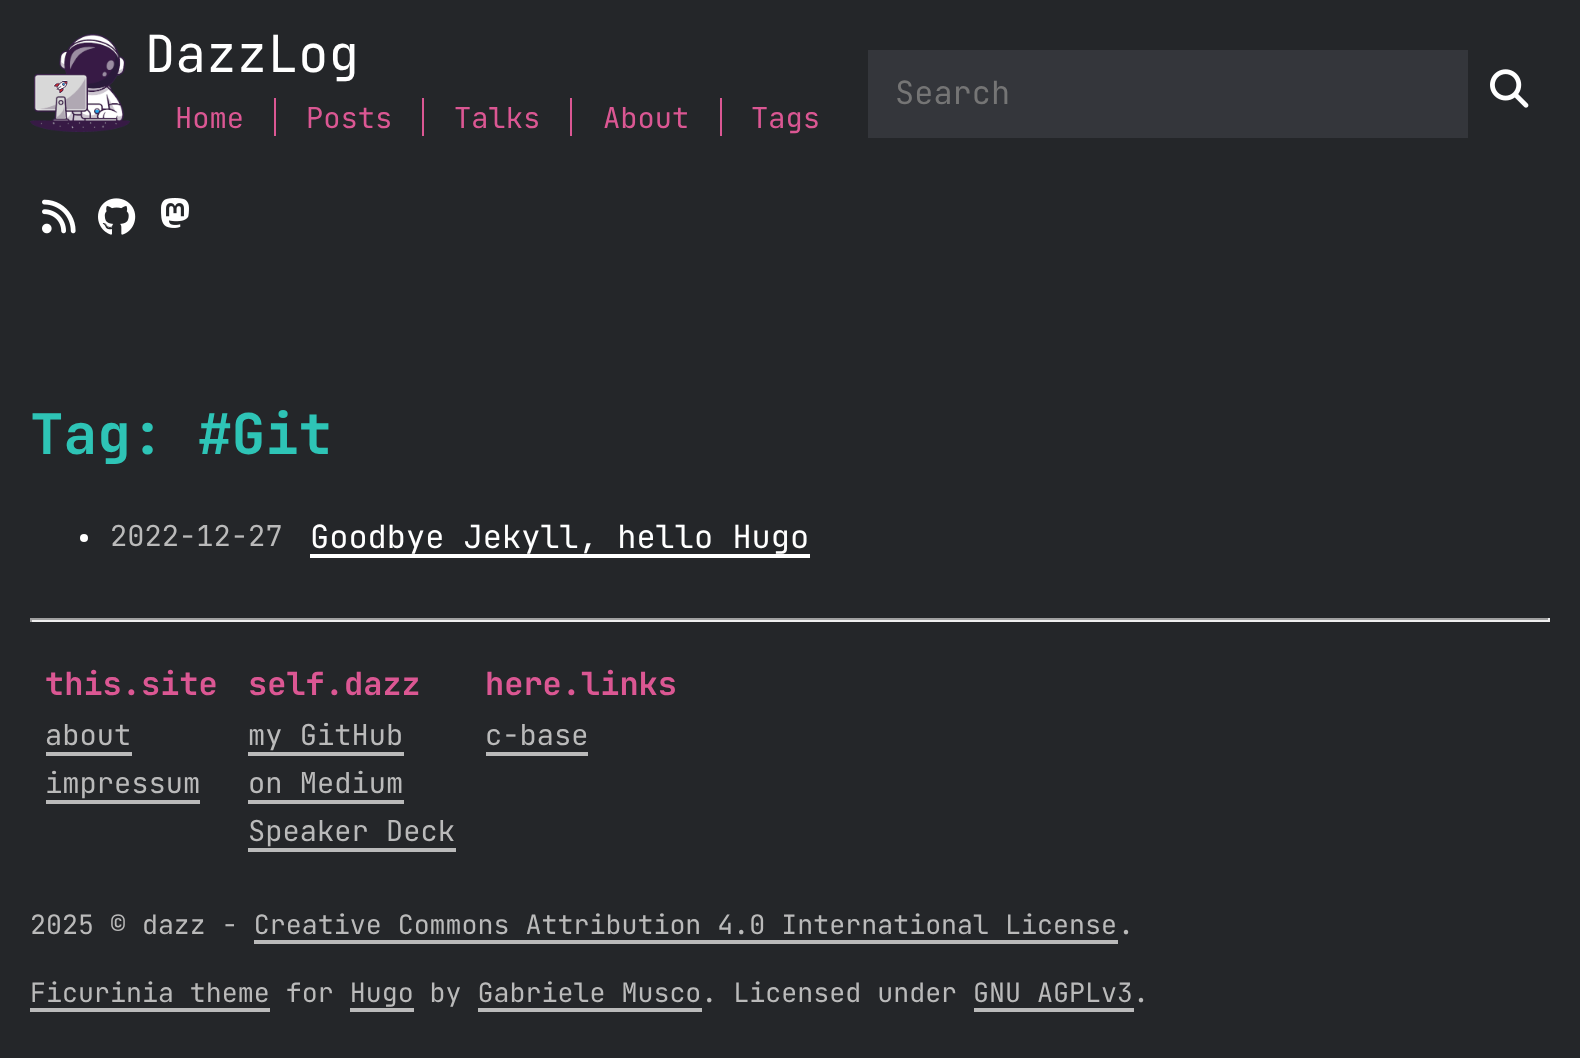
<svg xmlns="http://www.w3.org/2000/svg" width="1580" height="1058">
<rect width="100%" height="100%" fill="#242629"/>
<image x="30" y="34" width="100" height="98" href="media/1.png"/>
<text x="145" y="72" style="font-family:JetBrains Mono;font-size:51px;fill:#fff">DazzLog</text>
<rect x="274" y="98" width="2" height="38" fill="#db5793"/>
<text x="175" y="128" style="font-family:JetBrains Mono;font-size:28.75px;fill:#db5793">Home</text>
<rect x="422" y="98" width="2" height="38" fill="#db5793"/>
<text x="306" y="128" style="font-family:JetBrains Mono;font-size:28.75px;fill:#db5793">Posts</text>
<rect x="570" y="98" width="2" height="38" fill="#db5793"/>
<text x="454" y="128" style="font-family:JetBrains Mono;font-size:28.75px;fill:#db5793">Talks</text>
<rect x="720" y="98" width="2" height="38" fill="#db5793"/>
<text x="603" y="128" style="font-family:JetBrains Mono;font-size:28.75px;fill:#db5793">About</text>
<text x="751" y="128" style="font-family:JetBrains Mono;font-size:28.75px;fill:#db5793">Tags</text>
<rect x="868" y="50" width="600" height="88" fill="#34363b"/>
<text x="895" y="104" style="font-family:JetBrains Mono;font-size:32px;fill:#757575">Search</text>
<image x="1490" y="69" width="39" height="39" href="media/2.png"/>
<image x="42" y="199" width="34" height="35" href="media/3.png"/>
<image x="98" y="198" width="38" height="37" href="media/4.png"/>
<image x="161" y="198" width="28" height="30" href="media/5.png"/>
<text x="30" y="454" style="font-family:JetBrains Mono;font-size:56px;font-weight:bold;fill:#2ec4b6">Tag: #Git</text>
<circle cx="84" cy="538" r="4" fill="#fff"/>
<text x="110" y="546" style="font-family:JetBrains Mono;font-size:28.75px;fill:#bababa">2022-12-27</text>
<text x="310" y="548" style="font-family:JetBrains Mono;font-size:32px;fill:#fff">Goodbye Jekyll, hello Hugo</text>
<rect x="310" y="554" width="500" height="4" fill="#fff"/>
<rect x="30" y="618" width="1520" height="2" fill="#9f9f9f"/>
<rect x="1548" y="618" width="2" height="4" fill="#eee"/>
<rect x="30" y="620" width="1520" height="2" fill="#eee"/>
<rect x="30" y="618" width="2" height="4" fill="#9f9f9f"/>
<text x="45" y="695" style="font-family:JetBrains Mono;font-size:32px;font-weight:bold;fill:#db5793">this.site</text>
<text x="45" y="745" style="font-family:JetBrains Mono;font-size:28.75px;fill:#bababa">about</text>
<rect x="46" y="752" width="86" height="4" fill="#bababa"/>
<text x="45" y="793" style="font-family:JetBrains Mono;font-size:28.75px;fill:#bababa">impressum</text>
<rect x="46" y="800" width="154" height="4" fill="#bababa"/>
<text x="248" y="695" style="font-family:JetBrains Mono;font-size:32px;font-weight:bold;fill:#db5793">self.dazz</text>
<text x="248" y="745" style="font-family:JetBrains Mono;font-size:28.75px;fill:#bababa">my GitHub</text>
<rect x="248" y="752" width="156" height="4" fill="#bababa"/>
<text x="248" y="793" style="font-family:JetBrains Mono;font-size:28.75px;fill:#bababa">on Medium</text>
<rect x="248" y="800" width="156" height="4" fill="#bababa"/>
<text x="248" y="841" style="font-family:JetBrains Mono;font-size:28.75px;fill:#bababa">Speaker Deck</text>
<rect x="248" y="848" width="208" height="4" fill="#bababa"/>
<text x="485" y="695" style="font-family:JetBrains Mono;font-size:32px;font-weight:bold;fill:#db5793">here.links</text>
<text x="485" y="745" style="font-family:JetBrains Mono;font-size:28.75px;fill:#bababa">c-base</text>
<rect x="486" y="752" width="102" height="4" fill="#bababa"/>
<text x="30" y="934" style="font-family:JetBrains Mono;font-size:26.65px;fill:#bababa">2025 © dazz - Creative Commons Attribution 4.0 International License</text>
<text x="1118" y="934" style="font-family:JetBrains Mono;font-size:26.65px;fill:#bababa">.</text>
<rect x="254" y="940" width="864" height="4" fill="#bababa"/>
<text x="30" y="1002" style="font-family:JetBrains Mono;font-size:26.65px;fill:#bababa">Ficurinia theme for Hugo by Gabriele Musco. Licensed under GNU AGPLv3.</text>
<rect x="30" y="1008" width="240" height="4" fill="#bababa"/>
<rect x="350" y="1008" width="64" height="4" fill="#bababa"/>
<rect x="478" y="1008" width="224" height="4" fill="#bababa"/>
<rect x="974" y="1008" width="160" height="4" fill="#bababa"/>
</svg>
